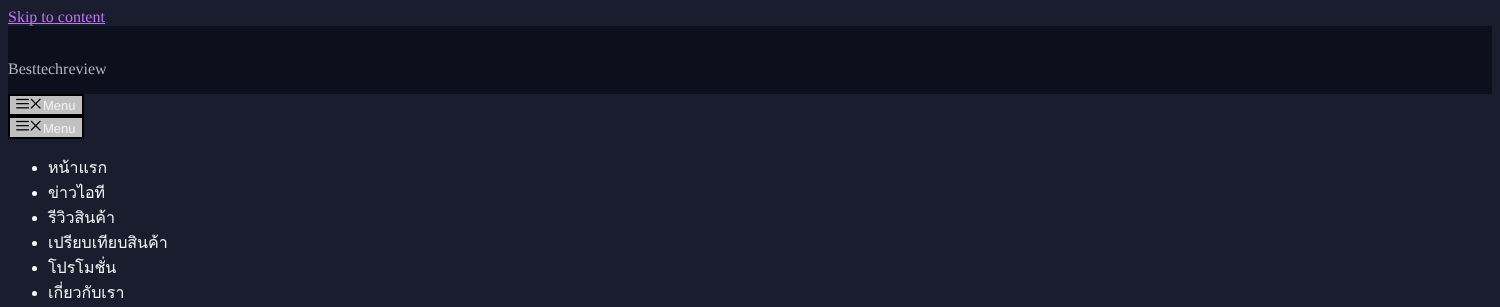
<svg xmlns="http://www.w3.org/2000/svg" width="1500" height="307">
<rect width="100%" height="100%" fill="#1a1d2e"/>
<rect x="8" y="23" width="97" height="1" fill="#bf73f5"/>
<text x="8" y="22" style="font-family:Liberation Serif;font-size:16px;fill:#bf73f5">Skip to content</text>
<rect x="8" y="26" width="1484" height="68" fill="#0d0f1c"/>
<text x="8" y="74" style="font-family:Liberation Serif;font-size:16px;fill:#b2b2be">Besttechreview</text>
<rect x="9" y="95" width="74" height="20" fill="#c0c0c0" stroke="#000" stroke-width="2"/>
<image x="16" y="98" width="13" height="11" href="media/1.png"/>
<image x="30" y="98" width="11" height="11" href="media/2.png"/>
<text x="43" y="110" style="font-family:Liberation Sans;font-size:13px;fill:#f0f0f0">Menu</text>
<rect x="9" y="117" width="74" height="21" fill="#c0c0c0" stroke="#000" stroke-width="2"/>
<image x="16" y="120" width="13" height="11" href="media/1.png"/>
<image x="30" y="120" width="11" height="11" href="media/2.png"/>
<text x="43" y="133" style="font-family:Liberation Sans;font-size:13px;fill:#f0f0f0">Menu</text>
<circle cx="34.5" cy="168.5" r="2.5" fill="#fff"/>
<text x="48" y="173" style="font-family:Loma;font-size:16px;fill:#f0f0f0">หน้าแรก</text>
<circle cx="34.5" cy="193.5" r="2.5" fill="#fff"/>
<text x="48" y="198" style="font-family:Loma;font-size:16px;fill:#f0f0f0">ข่าวไอที</text>
<circle cx="34.5" cy="218.5" r="2.5" fill="#fff"/>
<text x="48" y="223" style="font-family:Loma;font-size:16px;fill:#f0f0f0">รีวิวสินค้า</text>
<circle cx="34.5" cy="243.5" r="2.5" fill="#fff"/>
<text x="48" y="248" style="font-family:Loma;font-size:16px;fill:#f0f0f0">เปรียบเทียบสินค้า</text>
<circle cx="34.5" cy="268.5" r="2.5" fill="#fff"/>
<text x="48" y="273" style="font-family:Loma;font-size:16px;fill:#f0f0f0">โปรโมชั่น</text>
<circle cx="34.5" cy="293.5" r="2.5" fill="#fff"/>
<text x="48" y="298" style="font-family:Loma;font-size:16px;fill:#f0f0f0">เกี่ยวกับเรา</text>
</svg>
